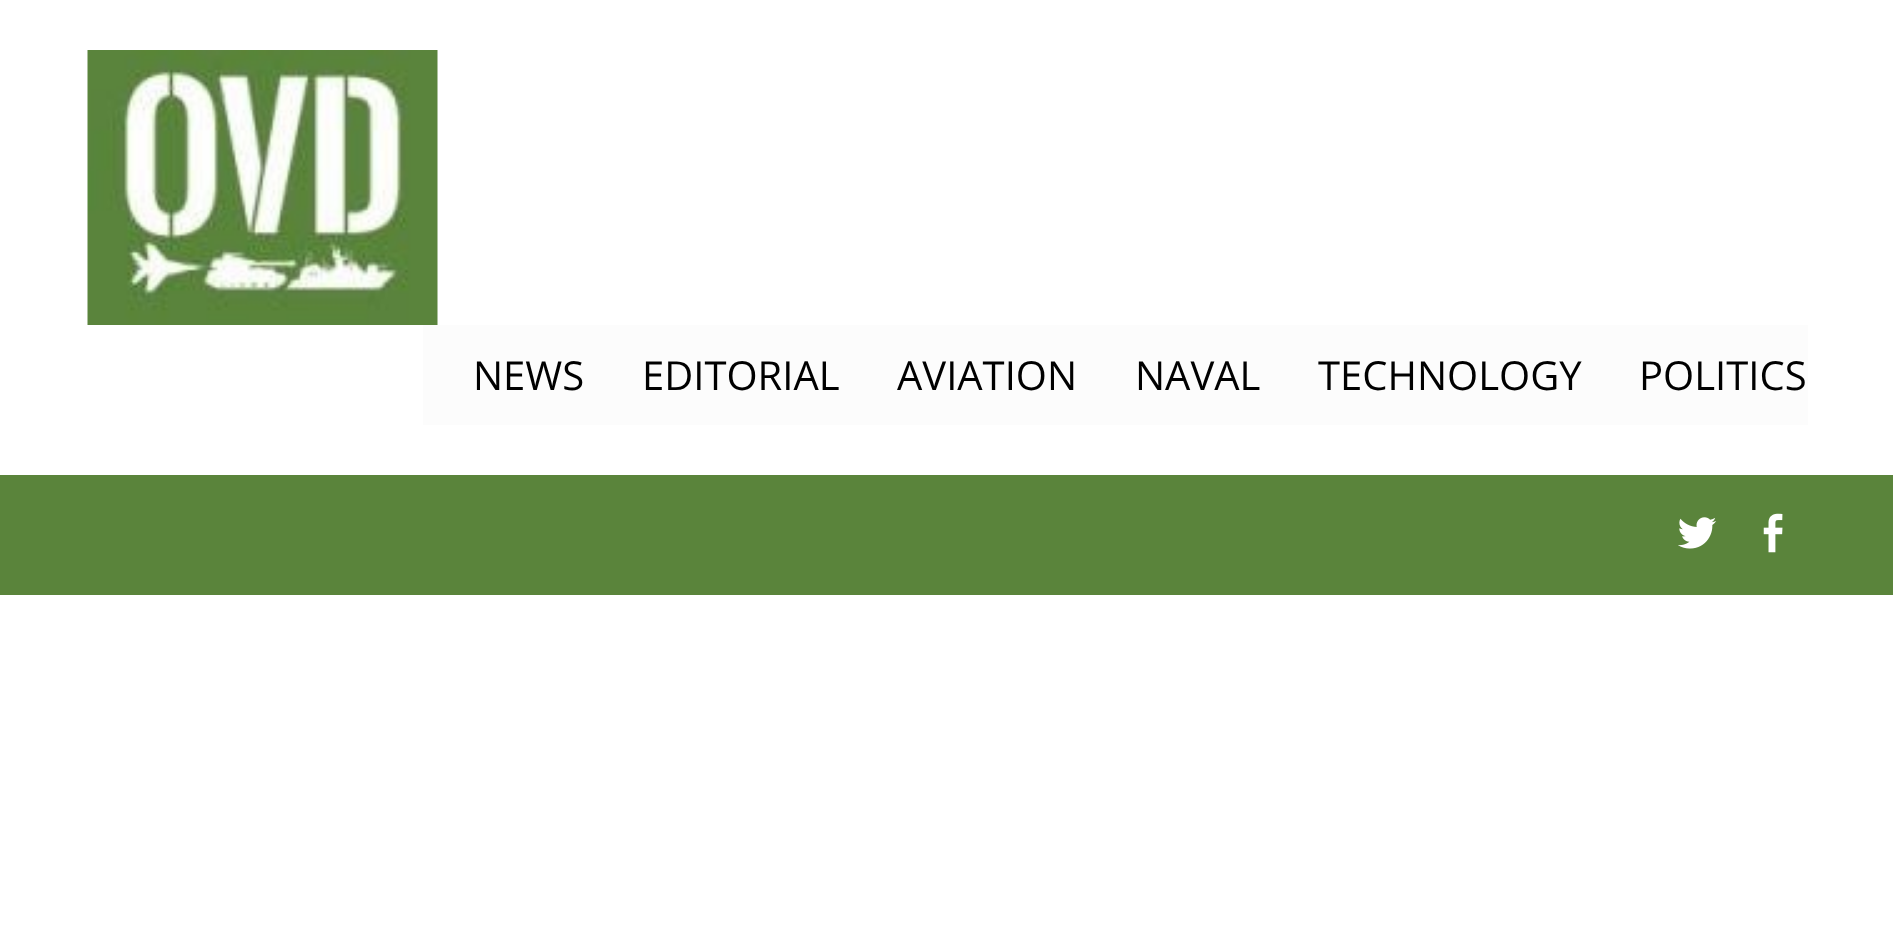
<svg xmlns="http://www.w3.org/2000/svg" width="1893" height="944">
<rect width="100%" height="100%" fill="#fff"/>
<image x="87" y="50" width="351" height="275" href="media/1.png"/>
<rect x="423" y="325" width="1385" height="100" fill="#fcfcfc"/>
<text x="473" y="390" style="font-family:Open Sans;font-size:40px;fill:#000">NEWS</text>
<text x="642" y="390" style="font-family:Open Sans;font-size:40px;fill:#000">EDITORIAL</text>
<text x="897" y="390" style="font-family:Open Sans;font-size:40px;fill:#000">AVIATION</text>
<text x="1135" y="390" style="font-family:Open Sans;font-size:40px;fill:#000">NAVAL</text>
<text x="1318" y="390" style="font-family:Open Sans;font-size:40px;fill:#000">TECHNOLOGY</text>
<text x="1639" y="390" style="font-family:Open Sans;font-size:40px;fill:#000">POLITICS</text>
<rect y="475" width="1893" height="120" fill="#5a843b"/>
<image x="1678" y="517" width="39" height="32" href="media/2.png"/>
<image x="1763" y="513" width="20" height="40" href="media/3.png"/>
</svg>
